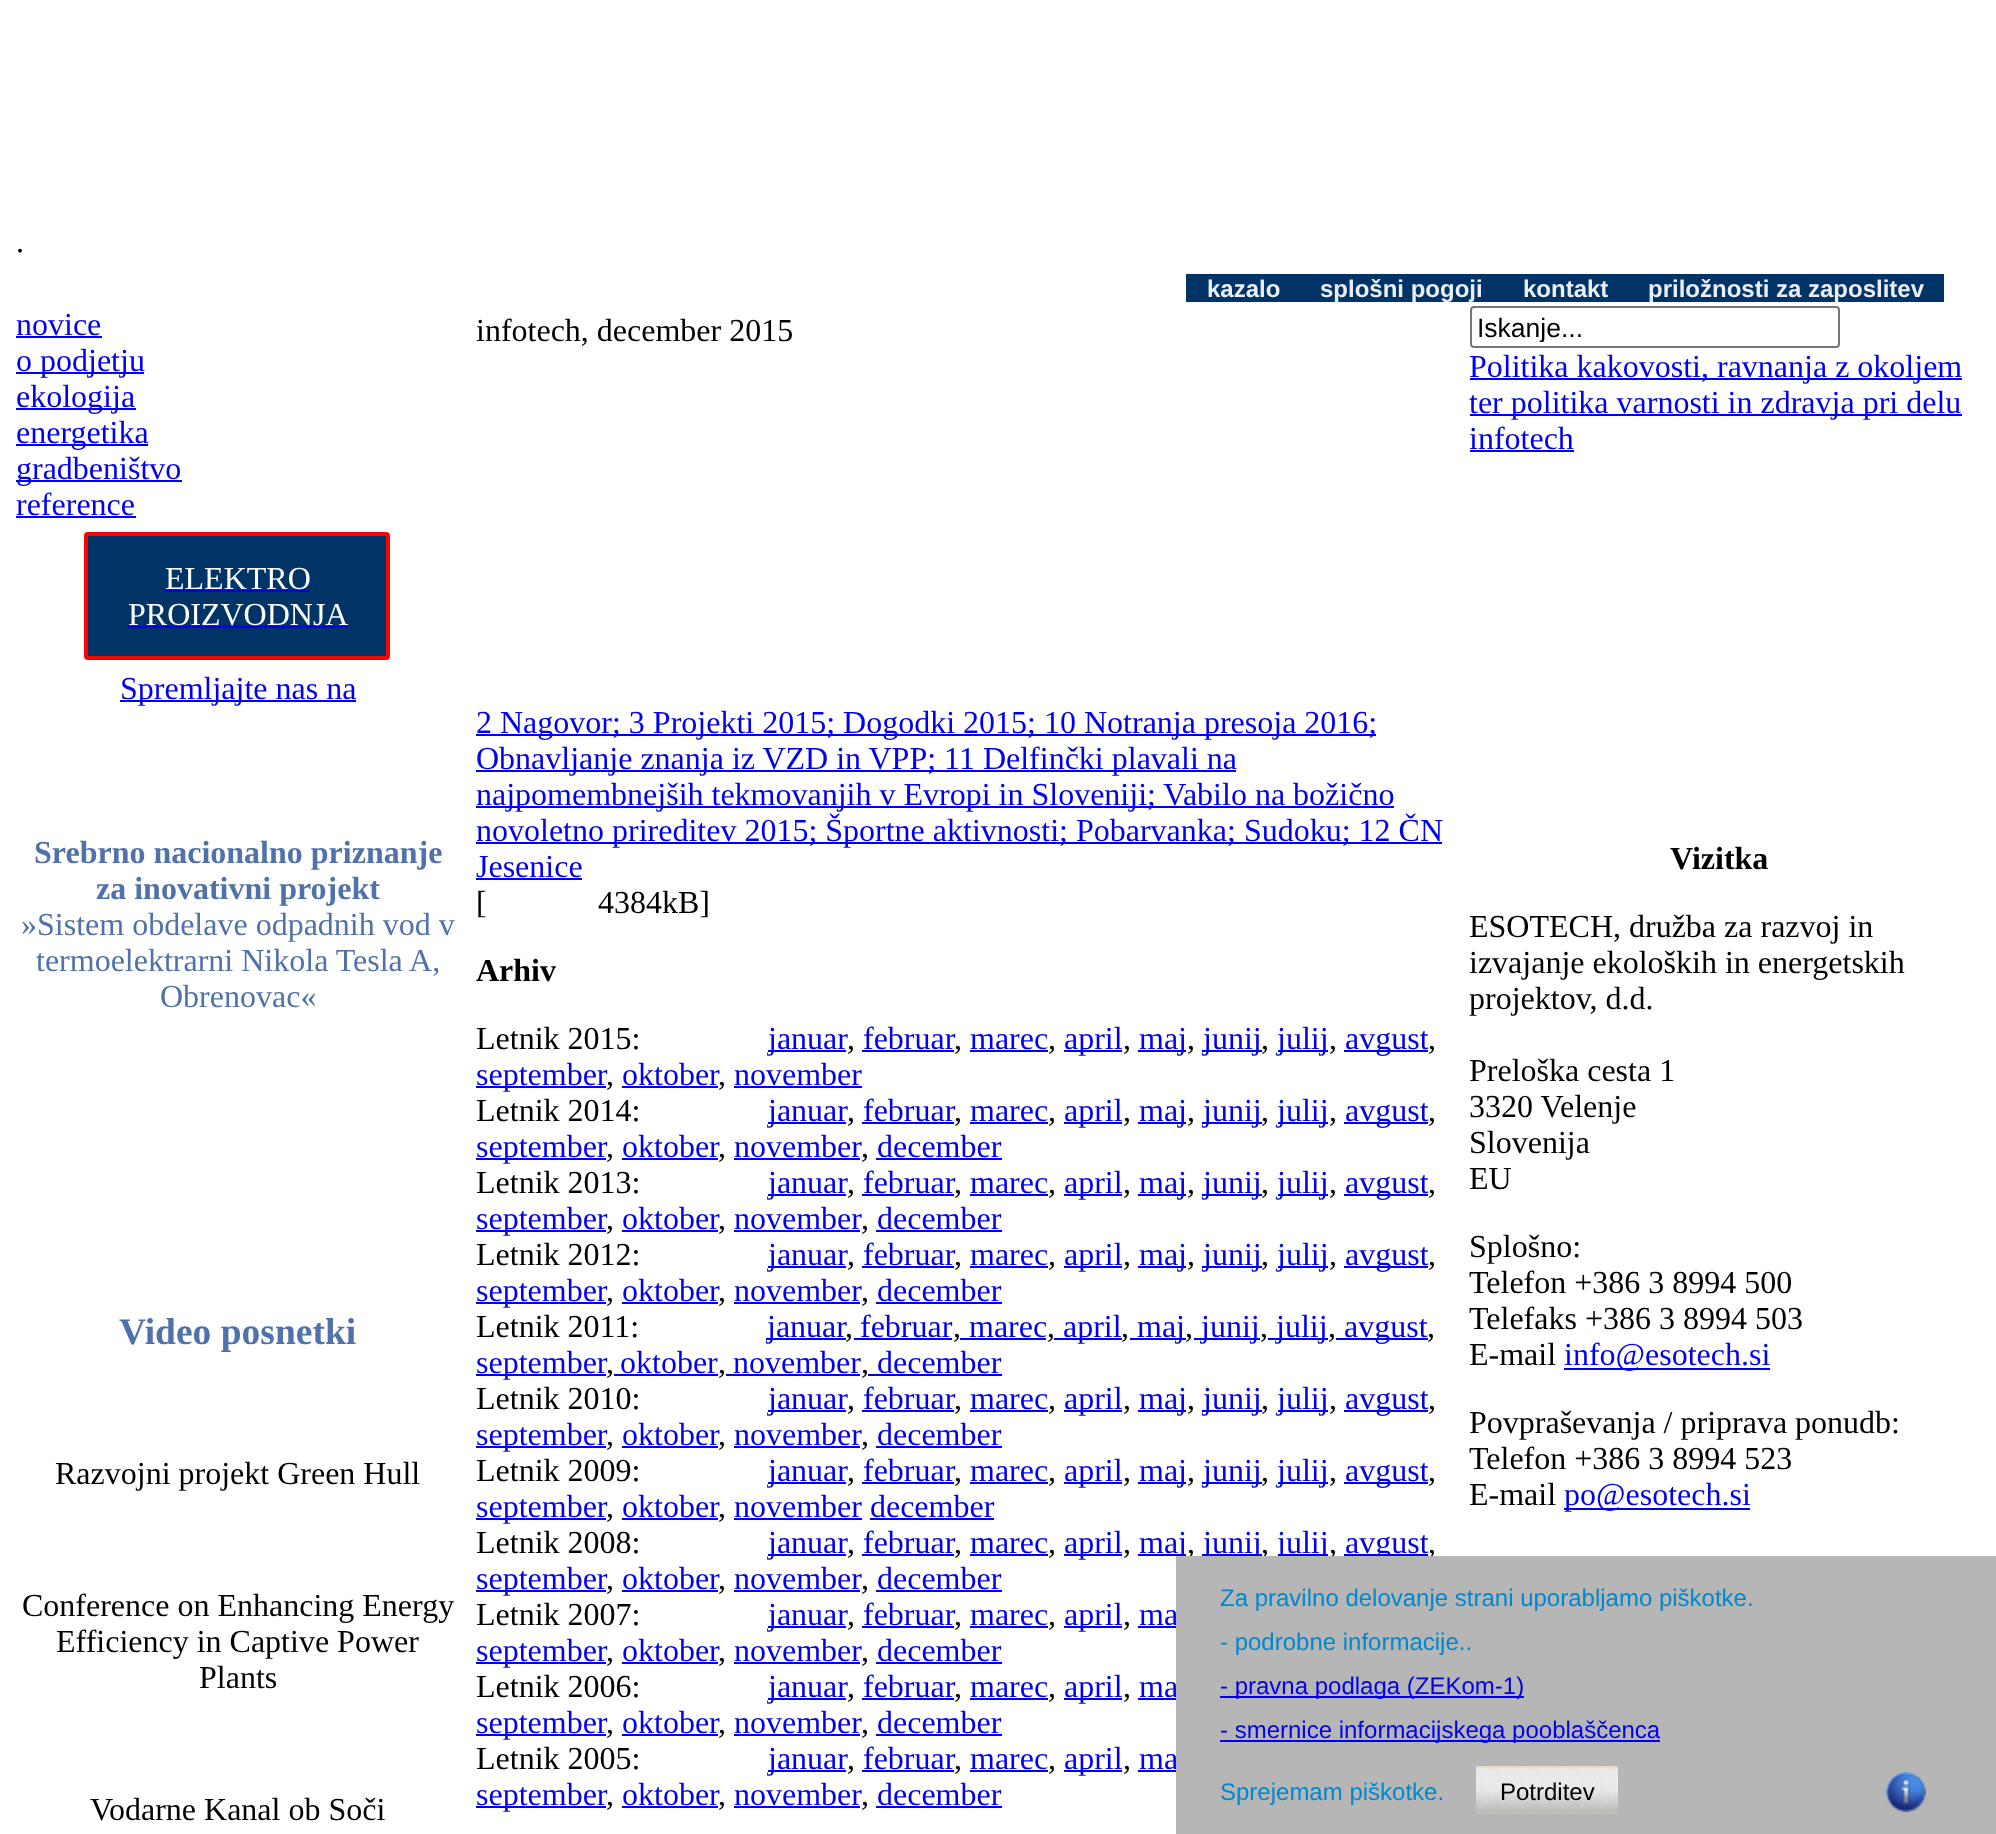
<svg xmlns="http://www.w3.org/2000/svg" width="1996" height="1834">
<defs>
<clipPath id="clip1"><rect x="1478" y="312" width="354" height="30"/></clipPath>
</defs>
<rect width="100%" height="100%" fill="#fff"/>
<text x="16" y="252" style="font-family:Liberation Serif;font-size:32px;fill:#000">.</text>
<rect x="1186" y="274" width="758" height="28" fill="#036"/>
<text x="1207" y="297" style="font-family:Liberation Sans;font-size:24px;font-weight:bold;fill:#ebeff5">kazalo</text>
<text x="1320" y="297" style="font-family:Liberation Sans;font-size:24px;font-weight:bold;fill:#ebeff5">splošni pogoji</text>
<text x="1523" y="297" style="font-family:Liberation Sans;font-size:24px;font-weight:bold;fill:#ebeff5">kontakt</text>
<text x="1648" y="297" style="font-family:Liberation Sans;font-size:24px;font-weight:bold;fill:#ebeff5">priložnosti za zaposlitev</text>
<text x="16" y="335" style="font-family:Liberation Serif;font-size:32px;fill:#00e">novice</text>
<rect x="16" y="336" width="86" height="2" fill="#00e"/>
<rect x="16" y="372" width="128" height="2" fill="#00e"/>
<text x="16" y="371" style="font-family:Liberation Serif;font-size:32px;fill:#00e">o podjetju</text>
<rect x="16" y="408" width="120" height="2" fill="#00e"/>
<text x="16" y="407" style="font-family:Liberation Serif;font-size:32px;fill:#00e">ekologija</text>
<rect x="16" y="444" width="132" height="2" fill="#00e"/>
<text x="16" y="443" style="font-family:Liberation Serif;font-size:32px;fill:#00e">energetika</text>
<rect x="16" y="480" width="166" height="2" fill="#00e"/>
<text x="16" y="479" style="font-family:Liberation Serif;font-size:32px;fill:#00e">gradbeništvo</text>
<text x="16" y="515" style="font-family:Liberation Serif;font-size:32px;fill:#00e">reference</text>
<rect x="16" y="516" width="120" height="2" fill="#00e"/>
<rect x="86" y="534" width="302" height="124" rx="2" fill="#036" stroke="#f00" stroke-width="4"/>
<text x="165" y="589" style="font-family:Liberation Serif;font-size:32px;fill:#fff">ELEKTRO</text>
<rect x="164" y="590" width="146" height="2" fill="#00e"/>
<text x="128" y="625" style="font-family:Liberation Serif;font-size:32px;fill:#fff">PROIZVODNJA</text>
<rect x="128" y="626" width="220" height="2" fill="#00e"/>
<rect x="120" y="700" width="236" height="2" fill="#00e"/>
<text x="120" y="699" style="font-family:Liberation Serif;font-size:32px;fill:#00e">Spremljajte nas na</text>
<text x="34" y="863" style="font-family:Liberation Serif;font-size:32px;font-weight:bold;fill:#5071aa">Srebrno nacionalno priznanje</text>
<text x="96" y="899" style="font-family:Liberation Serif;font-size:32px;font-weight:bold;fill:#5071aa">za inovativni projekt</text>
<text x="21" y="935" style="font-family:Liberation Serif;font-size:32px;fill:#5071aa">»Sistem obdelave odpadnih vod v</text>
<text x="36" y="971" style="font-family:Liberation Serif;font-size:32px;fill:#5071aa">termoelektrarni Nikola Tesla A,</text>
<text x="160" y="1007" style="font-family:Liberation Serif;font-size:32px;fill:#5071aa">Obrenovac«</text>
<text x="119" y="1344" style="font-family:Liberation Serif;font-size:37.5px;font-weight:bold;fill:#5071aa">Video posnetki</text>
<text x="55" y="1484" style="font-family:Liberation Serif;font-size:32px;fill:#000">Razvojni projekt Green Hull</text>
<text x="22" y="1616" style="font-family:Liberation Serif;font-size:32px;fill:#000">Conference on Enhancing Energy</text>
<text x="56" y="1652" style="font-family:Liberation Serif;font-size:32px;fill:#000">Efficiency in Captive Power</text>
<text x="199" y="1688" style="font-family:Liberation Serif;font-size:32px;fill:#000">Plants</text>
<text x="90" y="1820" style="font-family:Liberation Serif;font-size:32px;fill:#000">Vodarne Kanal ob Soči</text>
<text x="476" y="341" style="font-family:Liberation Serif;font-size:32px;fill:#000">infotech, december 2015</text>
<rect x="476" y="734" width="900" height="2" fill="#00e"/>
<text x="476" y="733" style="font-family:Liberation Serif;font-size:32px;fill:#00e">2 Nagovor; 3 Projekti 2015; Dogodki 2015; 10 Notranja presoja 2016;</text>
<rect x="476" y="770" width="760" height="2" fill="#00e"/>
<text x="476" y="769" style="font-family:Liberation Serif;font-size:32px;fill:#00e">Obnavljanje znanja iz VZD in VPP; 11 Delfinčki plavali na</text>
<rect x="476" y="806" width="918" height="2" fill="#00e"/>
<text x="476" y="805" style="font-family:Liberation Serif;font-size:32px;fill:#00e">najpomembnejših tekmovanjih v Evropi in Sloveniji; Vabilo na božično</text>
<rect x="476" y="842" width="966" height="2" fill="#00e"/>
<text x="476" y="841" style="font-family:Liberation Serif;font-size:32px;fill:#00e">novoletno prireditev 2015; Športne aktivnosti; Pobarvanka; Sudoku; 12 ČN</text>
<text x="476" y="877" style="font-family:Liberation Serif;font-size:32px;fill:#00e">Jesenice</text>
<rect x="476" y="878" width="106" height="2" fill="#00e"/>
<text x="476" y="913" style="font-family:Liberation Serif;font-size:32px;fill:#000">[</text>
<text x="598" y="913" style="font-family:Liberation Serif;font-size:32px;fill:#000">4384kB]</text>
<text x="476" y="981" style="font-family:Liberation Serif;font-size:32px;font-weight:bold;fill:#000">Arhiv</text>
<text x="476" y="1049" style="font-family:Liberation Serif;font-size:32px;fill:#000">Letnik 2015:</text>
<rect x="768" y="1050" width="78" height="2" fill="#00e"/>
<text x="768" y="1049" style="font-family:Liberation Serif;font-size:32px;fill:#00e">januar</text>
<text x="847" y="1049" style="font-family:Liberation Serif;font-size:32px;fill:#000">,</text>
<text x="863" y="1049" style="font-family:Liberation Serif;font-size:32px;fill:#00e">februar</text>
<text x="954" y="1049" style="font-family:Liberation Serif;font-size:32px;fill:#000">,</text>
<rect x="862" y="1050" width="92" height="2" fill="#00e"/>
<text x="970" y="1049" style="font-family:Liberation Serif;font-size:32px;fill:#00e">marec</text>
<text x="1048" y="1049" style="font-family:Liberation Serif;font-size:32px;fill:#000">,</text>
<rect x="970" y="1050" width="78" height="2" fill="#00e"/>
<rect x="1064" y="1050" width="58" height="2" fill="#00e"/>
<text x="1064" y="1049" style="font-family:Liberation Serif;font-size:32px;fill:#00e">april</text>
<text x="1123" y="1049" style="font-family:Liberation Serif;font-size:32px;fill:#000">,</text>
<rect x="1138" y="1050" width="48" height="2" fill="#00e"/>
<text x="1139" y="1049" style="font-family:Liberation Serif;font-size:32px;fill:#00e">maj</text>
<text x="1187" y="1049" style="font-family:Liberation Serif;font-size:32px;fill:#000">,</text>
<rect x="1202" y="1050" width="60" height="2" fill="#00e"/>
<text x="1203" y="1049" style="font-family:Liberation Serif;font-size:32px;fill:#00e">junij</text>
<text x="1261" y="1049" style="font-family:Liberation Serif;font-size:32px;fill:#000">,</text>
<rect x="1278" y="1050" width="50" height="2" fill="#00e"/>
<text x="1277" y="1049" style="font-family:Liberation Serif;font-size:32px;fill:#00e">julij</text>
<text x="1329" y="1049" style="font-family:Liberation Serif;font-size:32px;fill:#000">,</text>
<rect x="1344" y="1050" width="84" height="2" fill="#00e"/>
<text x="1345" y="1049" style="font-family:Liberation Serif;font-size:32px;fill:#00e">avgust</text>
<text x="1428" y="1049" style="font-family:Liberation Serif;font-size:32px;fill:#000">,</text>
<rect x="476" y="1086" width="130" height="2" fill="#00e"/>
<text x="476" y="1085" style="font-family:Liberation Serif;font-size:32px;fill:#00e">september</text>
<text x="606" y="1085" style="font-family:Liberation Serif;font-size:32px;fill:#000">,</text>
<text x="622" y="1085" style="font-family:Liberation Serif;font-size:32px;fill:#00e">oktober</text>
<text x="718" y="1085" style="font-family:Liberation Serif;font-size:32px;fill:#000">,</text>
<rect x="622" y="1086" width="96" height="2" fill="#00e"/>
<rect x="734" y="1086" width="128" height="2" fill="#00e"/>
<text x="734" y="1085" style="font-family:Liberation Serif;font-size:32px;fill:#00e">november</text>
<text x="476" y="1121" style="font-family:Liberation Serif;font-size:32px;fill:#000">Letnik 2014:</text>
<rect x="768" y="1122" width="78" height="2" fill="#00e"/>
<text x="768" y="1121" style="font-family:Liberation Serif;font-size:32px;fill:#00e">januar</text>
<text x="847" y="1121" style="font-family:Liberation Serif;font-size:32px;fill:#000">,</text>
<text x="863" y="1121" style="font-family:Liberation Serif;font-size:32px;fill:#00e">februar</text>
<text x="954" y="1121" style="font-family:Liberation Serif;font-size:32px;fill:#000">,</text>
<rect x="862" y="1122" width="92" height="2" fill="#00e"/>
<text x="970" y="1121" style="font-family:Liberation Serif;font-size:32px;fill:#00e">marec</text>
<text x="1048" y="1121" style="font-family:Liberation Serif;font-size:32px;fill:#000">,</text>
<rect x="970" y="1122" width="78" height="2" fill="#00e"/>
<rect x="1064" y="1122" width="58" height="2" fill="#00e"/>
<text x="1064" y="1121" style="font-family:Liberation Serif;font-size:32px;fill:#00e">april</text>
<text x="1123" y="1121" style="font-family:Liberation Serif;font-size:32px;fill:#000">,</text>
<rect x="1138" y="1122" width="48" height="2" fill="#00e"/>
<text x="1139" y="1121" style="font-family:Liberation Serif;font-size:32px;fill:#00e">maj</text>
<text x="1187" y="1121" style="font-family:Liberation Serif;font-size:32px;fill:#000">,</text>
<rect x="1202" y="1122" width="60" height="2" fill="#00e"/>
<text x="1203" y="1121" style="font-family:Liberation Serif;font-size:32px;fill:#00e">junij</text>
<text x="1261" y="1121" style="font-family:Liberation Serif;font-size:32px;fill:#000">,</text>
<rect x="1278" y="1122" width="50" height="2" fill="#00e"/>
<text x="1277" y="1121" style="font-family:Liberation Serif;font-size:32px;fill:#00e">julij</text>
<text x="1329" y="1121" style="font-family:Liberation Serif;font-size:32px;fill:#000">,</text>
<rect x="1344" y="1122" width="84" height="2" fill="#00e"/>
<text x="1345" y="1121" style="font-family:Liberation Serif;font-size:32px;fill:#00e">avgust</text>
<text x="1428" y="1121" style="font-family:Liberation Serif;font-size:32px;fill:#000">,</text>
<rect x="476" y="1158" width="130" height="2" fill="#00e"/>
<text x="476" y="1157" style="font-family:Liberation Serif;font-size:32px;fill:#00e">september</text>
<text x="606" y="1157" style="font-family:Liberation Serif;font-size:32px;fill:#000">,</text>
<text x="622" y="1157" style="font-family:Liberation Serif;font-size:32px;fill:#00e">oktober</text>
<text x="718" y="1157" style="font-family:Liberation Serif;font-size:32px;fill:#000">,</text>
<rect x="622" y="1158" width="96" height="2" fill="#00e"/>
<text x="734" y="1157" style="font-family:Liberation Serif;font-size:32px;fill:#00e">november</text>
<text x="861" y="1157" style="font-family:Liberation Serif;font-size:32px;fill:#000">,</text>
<rect x="734" y="1158" width="126" height="2" fill="#00e"/>
<rect x="876" y="1158" width="126" height="2" fill="#00e"/>
<text x="877" y="1157" style="font-family:Liberation Serif;font-size:32px;fill:#00e">december</text>
<text x="476" y="1193" style="font-family:Liberation Serif;font-size:32px;fill:#000">Letnik 2013:</text>
<rect x="768" y="1194" width="78" height="2" fill="#00e"/>
<text x="768" y="1193" style="font-family:Liberation Serif;font-size:32px;fill:#00e">januar</text>
<text x="847" y="1193" style="font-family:Liberation Serif;font-size:32px;fill:#000">,</text>
<text x="863" y="1193" style="font-family:Liberation Serif;font-size:32px;fill:#00e">februar</text>
<text x="954" y="1193" style="font-family:Liberation Serif;font-size:32px;fill:#000">,</text>
<rect x="862" y="1194" width="92" height="2" fill="#00e"/>
<text x="970" y="1193" style="font-family:Liberation Serif;font-size:32px;fill:#00e">marec</text>
<text x="1048" y="1193" style="font-family:Liberation Serif;font-size:32px;fill:#000">,</text>
<rect x="970" y="1194" width="78" height="2" fill="#00e"/>
<rect x="1064" y="1194" width="58" height="2" fill="#00e"/>
<text x="1064" y="1193" style="font-family:Liberation Serif;font-size:32px;fill:#00e">april</text>
<text x="1123" y="1193" style="font-family:Liberation Serif;font-size:32px;fill:#000">,</text>
<rect x="1138" y="1194" width="48" height="2" fill="#00e"/>
<text x="1139" y="1193" style="font-family:Liberation Serif;font-size:32px;fill:#00e">maj</text>
<text x="1187" y="1193" style="font-family:Liberation Serif;font-size:32px;fill:#000">,</text>
<rect x="1202" y="1194" width="60" height="2" fill="#00e"/>
<text x="1203" y="1193" style="font-family:Liberation Serif;font-size:32px;fill:#00e">junij</text>
<text x="1261" y="1193" style="font-family:Liberation Serif;font-size:32px;fill:#000">,</text>
<rect x="1278" y="1194" width="50" height="2" fill="#00e"/>
<text x="1277" y="1193" style="font-family:Liberation Serif;font-size:32px;fill:#00e">julij</text>
<text x="1329" y="1193" style="font-family:Liberation Serif;font-size:32px;fill:#000">,</text>
<rect x="1344" y="1194" width="84" height="2" fill="#00e"/>
<text x="1345" y="1193" style="font-family:Liberation Serif;font-size:32px;fill:#00e">avgust</text>
<text x="1428" y="1193" style="font-family:Liberation Serif;font-size:32px;fill:#000">,</text>
<rect x="476" y="1230" width="130" height="2" fill="#00e"/>
<text x="476" y="1229" style="font-family:Liberation Serif;font-size:32px;fill:#00e">september</text>
<text x="606" y="1229" style="font-family:Liberation Serif;font-size:32px;fill:#000">,</text>
<text x="622" y="1229" style="font-family:Liberation Serif;font-size:32px;fill:#00e">oktober</text>
<text x="718" y="1229" style="font-family:Liberation Serif;font-size:32px;fill:#000">,</text>
<rect x="622" y="1230" width="96" height="2" fill="#00e"/>
<text x="734" y="1229" style="font-family:Liberation Serif;font-size:32px;fill:#00e">november</text>
<text x="861" y="1229" style="font-family:Liberation Serif;font-size:32px;fill:#000">,</text>
<rect x="734" y="1230" width="126" height="2" fill="#00e"/>
<rect x="876" y="1230" width="126" height="2" fill="#00e"/>
<text x="877" y="1229" style="font-family:Liberation Serif;font-size:32px;fill:#00e">december</text>
<text x="476" y="1265" style="font-family:Liberation Serif;font-size:32px;fill:#000">Letnik 2012:</text>
<rect x="768" y="1266" width="78" height="2" fill="#00e"/>
<text x="768" y="1265" style="font-family:Liberation Serif;font-size:32px;fill:#00e">januar</text>
<text x="847" y="1265" style="font-family:Liberation Serif;font-size:32px;fill:#000">,</text>
<text x="863" y="1265" style="font-family:Liberation Serif;font-size:32px;fill:#00e">februar</text>
<text x="954" y="1265" style="font-family:Liberation Serif;font-size:32px;fill:#000">,</text>
<rect x="862" y="1266" width="92" height="2" fill="#00e"/>
<text x="970" y="1265" style="font-family:Liberation Serif;font-size:32px;fill:#00e">marec</text>
<text x="1048" y="1265" style="font-family:Liberation Serif;font-size:32px;fill:#000">,</text>
<rect x="970" y="1266" width="78" height="2" fill="#00e"/>
<rect x="1064" y="1266" width="58" height="2" fill="#00e"/>
<text x="1064" y="1265" style="font-family:Liberation Serif;font-size:32px;fill:#00e">april</text>
<text x="1123" y="1265" style="font-family:Liberation Serif;font-size:32px;fill:#000">,</text>
<rect x="1138" y="1266" width="48" height="2" fill="#00e"/>
<text x="1139" y="1265" style="font-family:Liberation Serif;font-size:32px;fill:#00e">maj</text>
<text x="1187" y="1265" style="font-family:Liberation Serif;font-size:32px;fill:#000">,</text>
<rect x="1202" y="1266" width="60" height="2" fill="#00e"/>
<text x="1203" y="1265" style="font-family:Liberation Serif;font-size:32px;fill:#00e">junij</text>
<text x="1261" y="1265" style="font-family:Liberation Serif;font-size:32px;fill:#000">,</text>
<rect x="1278" y="1266" width="50" height="2" fill="#00e"/>
<text x="1277" y="1265" style="font-family:Liberation Serif;font-size:32px;fill:#00e">julij</text>
<text x="1329" y="1265" style="font-family:Liberation Serif;font-size:32px;fill:#000">,</text>
<rect x="1344" y="1266" width="84" height="2" fill="#00e"/>
<text x="1345" y="1265" style="font-family:Liberation Serif;font-size:32px;fill:#00e">avgust</text>
<text x="1428" y="1265" style="font-family:Liberation Serif;font-size:32px;fill:#000">,</text>
<rect x="476" y="1302" width="130" height="2" fill="#00e"/>
<text x="476" y="1301" style="font-family:Liberation Serif;font-size:32px;fill:#00e">september</text>
<text x="606" y="1301" style="font-family:Liberation Serif;font-size:32px;fill:#000">,</text>
<text x="622" y="1301" style="font-family:Liberation Serif;font-size:32px;fill:#00e">oktober</text>
<text x="718" y="1301" style="font-family:Liberation Serif;font-size:32px;fill:#000">,</text>
<rect x="622" y="1302" width="96" height="2" fill="#00e"/>
<text x="734" y="1301" style="font-family:Liberation Serif;font-size:32px;fill:#00e">november</text>
<text x="861" y="1301" style="font-family:Liberation Serif;font-size:32px;fill:#000">,</text>
<rect x="734" y="1302" width="126" height="2" fill="#00e"/>
<rect x="876" y="1302" width="126" height="2" fill="#00e"/>
<text x="877" y="1301" style="font-family:Liberation Serif;font-size:32px;fill:#00e">december</text>
<text x="476" y="1337" style="font-family:Liberation Serif;font-size:32px;fill:#000">Letnik 2011:</text>
<rect x="766" y="1338" width="80" height="2" fill="#00e"/>
<text x="767" y="1337" style="font-family:Liberation Serif;font-size:32px;fill:#00e">januar</text>
<text x="845" y="1337" style="font-family:Liberation Serif;font-size:32px;fill:#000">,</text>
<text x="860" y="1337" style="font-family:Liberation Serif;font-size:32px;fill:#00e">februar</text>
<text x="953" y="1337" style="font-family:Liberation Serif;font-size:32px;fill:#000">,</text>
<rect x="854" y="1338" width="98" height="2" fill="#00e"/>
<rect x="960" y="1338" width="86" height="2" fill="#00e"/>
<text x="969" y="1337" style="font-family:Liberation Serif;font-size:32px;fill:#00e">marec</text>
<text x="1047" y="1337" style="font-family:Liberation Serif;font-size:32px;fill:#000">,</text>
<rect x="1054" y="1338" width="68" height="2" fill="#00e"/>
<text x="1063" y="1337" style="font-family:Liberation Serif;font-size:32px;fill:#00e">april</text>
<text x="1121" y="1337" style="font-family:Liberation Serif;font-size:32px;fill:#000">,</text>
<rect x="1130" y="1338" width="56" height="2" fill="#00e"/>
<text x="1137" y="1337" style="font-family:Liberation Serif;font-size:32px;fill:#00e">maj</text>
<text x="1185" y="1337" style="font-family:Liberation Serif;font-size:32px;fill:#000">,</text>
<rect x="1194" y="1338" width="66" height="2" fill="#00e"/>
<text x="1201" y="1337" style="font-family:Liberation Serif;font-size:32px;fill:#00e">junij</text>
<text x="1260" y="1337" style="font-family:Liberation Serif;font-size:32px;fill:#000">,</text>
<rect x="1268" y="1338" width="60" height="2" fill="#00e"/>
<text x="1276" y="1337" style="font-family:Liberation Serif;font-size:32px;fill:#00e">julij</text>
<text x="1328" y="1337" style="font-family:Liberation Serif;font-size:32px;fill:#000">,</text>
<rect x="1336" y="1338" width="92" height="2" fill="#00e"/>
<text x="1344" y="1337" style="font-family:Liberation Serif;font-size:32px;fill:#00e">avgust</text>
<text x="1427" y="1337" style="font-family:Liberation Serif;font-size:32px;fill:#000">,</text>
<rect x="476" y="1374" width="130" height="2" fill="#00e"/>
<text x="476" y="1373" style="font-family:Liberation Serif;font-size:32px;fill:#00e">september</text>
<text x="606" y="1373" style="font-family:Liberation Serif;font-size:32px;fill:#000">,</text>
<text x="620" y="1373" style="font-family:Liberation Serif;font-size:32px;fill:#00e">oktober</text>
<text x="718" y="1373" style="font-family:Liberation Serif;font-size:32px;fill:#000">,</text>
<rect x="614" y="1374" width="104" height="2" fill="#00e"/>
<rect x="726" y="1374" width="134" height="2" fill="#00e"/>
<text x="733" y="1373" style="font-family:Liberation Serif;font-size:32px;fill:#00e">november</text>
<text x="861" y="1373" style="font-family:Liberation Serif;font-size:32px;fill:#000">,</text>
<rect x="868" y="1374" width="134" height="2" fill="#00e"/>
<text x="877" y="1373" style="font-family:Liberation Serif;font-size:32px;fill:#00e">december</text>
<text x="476" y="1409" style="font-family:Liberation Serif;font-size:32px;fill:#000">Letnik 2010:</text>
<rect x="768" y="1410" width="78" height="2" fill="#00e"/>
<text x="768" y="1409" style="font-family:Liberation Serif;font-size:32px;fill:#00e">januar</text>
<text x="847" y="1409" style="font-family:Liberation Serif;font-size:32px;fill:#000">,</text>
<text x="863" y="1409" style="font-family:Liberation Serif;font-size:32px;fill:#00e">februar</text>
<text x="954" y="1409" style="font-family:Liberation Serif;font-size:32px;fill:#000">,</text>
<rect x="862" y="1410" width="92" height="2" fill="#00e"/>
<text x="970" y="1409" style="font-family:Liberation Serif;font-size:32px;fill:#00e">marec</text>
<text x="1048" y="1409" style="font-family:Liberation Serif;font-size:32px;fill:#000">,</text>
<rect x="970" y="1410" width="78" height="2" fill="#00e"/>
<rect x="1064" y="1410" width="58" height="2" fill="#00e"/>
<text x="1064" y="1409" style="font-family:Liberation Serif;font-size:32px;fill:#00e">april</text>
<text x="1123" y="1409" style="font-family:Liberation Serif;font-size:32px;fill:#000">,</text>
<rect x="1138" y="1410" width="48" height="2" fill="#00e"/>
<text x="1139" y="1409" style="font-family:Liberation Serif;font-size:32px;fill:#00e">maj</text>
<text x="1187" y="1409" style="font-family:Liberation Serif;font-size:32px;fill:#000">,</text>
<rect x="1202" y="1410" width="60" height="2" fill="#00e"/>
<text x="1203" y="1409" style="font-family:Liberation Serif;font-size:32px;fill:#00e">junij</text>
<text x="1261" y="1409" style="font-family:Liberation Serif;font-size:32px;fill:#000">,</text>
<rect x="1278" y="1410" width="50" height="2" fill="#00e"/>
<text x="1277" y="1409" style="font-family:Liberation Serif;font-size:32px;fill:#00e">julij</text>
<text x="1329" y="1409" style="font-family:Liberation Serif;font-size:32px;fill:#000">,</text>
<rect x="1344" y="1410" width="84" height="2" fill="#00e"/>
<text x="1345" y="1409" style="font-family:Liberation Serif;font-size:32px;fill:#00e">avgust</text>
<text x="1428" y="1409" style="font-family:Liberation Serif;font-size:32px;fill:#000">,</text>
<rect x="476" y="1446" width="130" height="2" fill="#00e"/>
<text x="476" y="1445" style="font-family:Liberation Serif;font-size:32px;fill:#00e">september</text>
<text x="606" y="1445" style="font-family:Liberation Serif;font-size:32px;fill:#000">,</text>
<text x="622" y="1445" style="font-family:Liberation Serif;font-size:32px;fill:#00e">oktober</text>
<text x="718" y="1445" style="font-family:Liberation Serif;font-size:32px;fill:#000">,</text>
<rect x="622" y="1446" width="96" height="2" fill="#00e"/>
<text x="734" y="1445" style="font-family:Liberation Serif;font-size:32px;fill:#00e">november</text>
<text x="861" y="1445" style="font-family:Liberation Serif;font-size:32px;fill:#000">,</text>
<rect x="734" y="1446" width="126" height="2" fill="#00e"/>
<rect x="876" y="1446" width="126" height="2" fill="#00e"/>
<text x="877" y="1445" style="font-family:Liberation Serif;font-size:32px;fill:#00e">december</text>
<text x="476" y="1481" style="font-family:Liberation Serif;font-size:32px;fill:#000">Letnik 2009:</text>
<rect x="768" y="1482" width="78" height="2" fill="#00e"/>
<text x="768" y="1481" style="font-family:Liberation Serif;font-size:32px;fill:#00e">januar</text>
<text x="847" y="1481" style="font-family:Liberation Serif;font-size:32px;fill:#000">,</text>
<text x="863" y="1481" style="font-family:Liberation Serif;font-size:32px;fill:#00e">februar</text>
<text x="954" y="1481" style="font-family:Liberation Serif;font-size:32px;fill:#000">,</text>
<rect x="862" y="1482" width="92" height="2" fill="#00e"/>
<text x="970" y="1481" style="font-family:Liberation Serif;font-size:32px;fill:#00e">marec</text>
<text x="1048" y="1481" style="font-family:Liberation Serif;font-size:32px;fill:#000">,</text>
<rect x="970" y="1482" width="78" height="2" fill="#00e"/>
<rect x="1064" y="1482" width="58" height="2" fill="#00e"/>
<text x="1064" y="1481" style="font-family:Liberation Serif;font-size:32px;fill:#00e">april</text>
<text x="1123" y="1481" style="font-family:Liberation Serif;font-size:32px;fill:#000">,</text>
<rect x="1138" y="1482" width="48" height="2" fill="#00e"/>
<text x="1139" y="1481" style="font-family:Liberation Serif;font-size:32px;fill:#00e">maj</text>
<text x="1187" y="1481" style="font-family:Liberation Serif;font-size:32px;fill:#000">,</text>
<rect x="1202" y="1482" width="60" height="2" fill="#00e"/>
<text x="1203" y="1481" style="font-family:Liberation Serif;font-size:32px;fill:#00e">junij</text>
<text x="1261" y="1481" style="font-family:Liberation Serif;font-size:32px;fill:#000">,</text>
<rect x="1278" y="1482" width="50" height="2" fill="#00e"/>
<text x="1277" y="1481" style="font-family:Liberation Serif;font-size:32px;fill:#00e">julij</text>
<text x="1329" y="1481" style="font-family:Liberation Serif;font-size:32px;fill:#000">,</text>
<rect x="1344" y="1482" width="84" height="2" fill="#00e"/>
<text x="1345" y="1481" style="font-family:Liberation Serif;font-size:32px;fill:#00e">avgust</text>
<text x="1428" y="1481" style="font-family:Liberation Serif;font-size:32px;fill:#000">,</text>
<rect x="476" y="1518" width="130" height="2" fill="#00e"/>
<text x="476" y="1517" style="font-family:Liberation Serif;font-size:32px;fill:#00e">september</text>
<text x="606" y="1517" style="font-family:Liberation Serif;font-size:32px;fill:#000">,</text>
<text x="622" y="1517" style="font-family:Liberation Serif;font-size:32px;fill:#00e">oktober</text>
<text x="718" y="1517" style="font-family:Liberation Serif;font-size:32px;fill:#000">,</text>
<rect x="622" y="1518" width="96" height="2" fill="#00e"/>
<rect x="734" y="1518" width="128" height="2" fill="#00e"/>
<text x="734" y="1517" style="font-family:Liberation Serif;font-size:32px;fill:#00e">november december</text>
<rect x="870" y="1518" width="124" height="2" fill="#00e"/>
<text x="476" y="1553" style="font-family:Liberation Serif;font-size:32px;fill:#000">Letnik 2008:</text>
<rect x="768" y="1554" width="78" height="2" fill="#00e"/>
<text x="768" y="1553" style="font-family:Liberation Serif;font-size:32px;fill:#00e">januar</text>
<text x="847" y="1553" style="font-family:Liberation Serif;font-size:32px;fill:#000">,</text>
<text x="863" y="1553" style="font-family:Liberation Serif;font-size:32px;fill:#00e">februar</text>
<text x="954" y="1553" style="font-family:Liberation Serif;font-size:32px;fill:#000">,</text>
<rect x="862" y="1554" width="92" height="2" fill="#00e"/>
<text x="970" y="1553" style="font-family:Liberation Serif;font-size:32px;fill:#00e">marec</text>
<text x="1048" y="1553" style="font-family:Liberation Serif;font-size:32px;fill:#000">,</text>
<rect x="970" y="1554" width="78" height="2" fill="#00e"/>
<rect x="1064" y="1554" width="58" height="2" fill="#00e"/>
<text x="1064" y="1553" style="font-family:Liberation Serif;font-size:32px;fill:#00e">april</text>
<text x="1123" y="1553" style="font-family:Liberation Serif;font-size:32px;fill:#000">,</text>
<rect x="1138" y="1554" width="48" height="2" fill="#00e"/>
<text x="1139" y="1553" style="font-family:Liberation Serif;font-size:32px;fill:#00e">maj</text>
<text x="1187" y="1553" style="font-family:Liberation Serif;font-size:32px;fill:#000">,</text>
<rect x="1202" y="1554" width="60" height="2" fill="#00e"/>
<text x="1203" y="1553" style="font-family:Liberation Serif;font-size:32px;fill:#00e">junij</text>
<text x="1261" y="1553" style="font-family:Liberation Serif;font-size:32px;fill:#000">,</text>
<rect x="1278" y="1554" width="50" height="2" fill="#00e"/>
<text x="1277" y="1553" style="font-family:Liberation Serif;font-size:32px;fill:#00e">julij</text>
<text x="1329" y="1553" style="font-family:Liberation Serif;font-size:32px;fill:#000">,</text>
<rect x="1344" y="1554" width="84" height="2" fill="#00e"/>
<text x="1345" y="1553" style="font-family:Liberation Serif;font-size:32px;fill:#00e">avgust</text>
<text x="1428" y="1553" style="font-family:Liberation Serif;font-size:32px;fill:#000">,</text>
<rect x="476" y="1590" width="130" height="2" fill="#00e"/>
<text x="476" y="1589" style="font-family:Liberation Serif;font-size:32px;fill:#00e">september</text>
<text x="606" y="1589" style="font-family:Liberation Serif;font-size:32px;fill:#000">,</text>
<text x="622" y="1589" style="font-family:Liberation Serif;font-size:32px;fill:#00e">oktober</text>
<text x="718" y="1589" style="font-family:Liberation Serif;font-size:32px;fill:#000">,</text>
<rect x="622" y="1590" width="96" height="2" fill="#00e"/>
<text x="734" y="1589" style="font-family:Liberation Serif;font-size:32px;fill:#00e">november</text>
<text x="861" y="1589" style="font-family:Liberation Serif;font-size:32px;fill:#000">,</text>
<rect x="734" y="1590" width="126" height="2" fill="#00e"/>
<rect x="876" y="1590" width="126" height="2" fill="#00e"/>
<text x="877" y="1589" style="font-family:Liberation Serif;font-size:32px;fill:#00e">december</text>
<text x="476" y="1625" style="font-family:Liberation Serif;font-size:32px;fill:#000">Letnik 2007:</text>
<rect x="768" y="1626" width="78" height="2" fill="#00e"/>
<text x="768" y="1625" style="font-family:Liberation Serif;font-size:32px;fill:#00e">januar</text>
<text x="847" y="1625" style="font-family:Liberation Serif;font-size:32px;fill:#000">,</text>
<text x="863" y="1625" style="font-family:Liberation Serif;font-size:32px;fill:#00e">februar</text>
<text x="954" y="1625" style="font-family:Liberation Serif;font-size:32px;fill:#000">,</text>
<rect x="862" y="1626" width="92" height="2" fill="#00e"/>
<text x="970" y="1625" style="font-family:Liberation Serif;font-size:32px;fill:#00e">marec</text>
<text x="1048" y="1625" style="font-family:Liberation Serif;font-size:32px;fill:#000">,</text>
<rect x="970" y="1626" width="78" height="2" fill="#00e"/>
<rect x="1064" y="1626" width="58" height="2" fill="#00e"/>
<text x="1064" y="1625" style="font-family:Liberation Serif;font-size:32px;fill:#00e">april</text>
<text x="1123" y="1625" style="font-family:Liberation Serif;font-size:32px;fill:#000">,</text>
<rect x="1138" y="1626" width="38" height="2" fill="#00e"/>
<text x="1139" y="1625" style="font-family:Liberation Serif;font-size:32px;fill:#00e">ma</text>
<rect x="476" y="1662" width="130" height="2" fill="#00e"/>
<text x="476" y="1661" style="font-family:Liberation Serif;font-size:32px;fill:#00e">september</text>
<text x="606" y="1661" style="font-family:Liberation Serif;font-size:32px;fill:#000">,</text>
<text x="622" y="1661" style="font-family:Liberation Serif;font-size:32px;fill:#00e">oktober</text>
<text x="718" y="1661" style="font-family:Liberation Serif;font-size:32px;fill:#000">,</text>
<rect x="622" y="1662" width="96" height="2" fill="#00e"/>
<text x="734" y="1661" style="font-family:Liberation Serif;font-size:32px;fill:#00e">november</text>
<text x="861" y="1661" style="font-family:Liberation Serif;font-size:32px;fill:#000">,</text>
<rect x="734" y="1662" width="126" height="2" fill="#00e"/>
<rect x="876" y="1662" width="126" height="2" fill="#00e"/>
<text x="877" y="1661" style="font-family:Liberation Serif;font-size:32px;fill:#00e">december</text>
<text x="476" y="1697" style="font-family:Liberation Serif;font-size:32px;fill:#000">Letnik 2006:</text>
<rect x="768" y="1698" width="78" height="2" fill="#00e"/>
<text x="768" y="1697" style="font-family:Liberation Serif;font-size:32px;fill:#00e">januar</text>
<text x="847" y="1697" style="font-family:Liberation Serif;font-size:32px;fill:#000">,</text>
<text x="863" y="1697" style="font-family:Liberation Serif;font-size:32px;fill:#00e">februar</text>
<text x="954" y="1697" style="font-family:Liberation Serif;font-size:32px;fill:#000">,</text>
<rect x="862" y="1698" width="92" height="2" fill="#00e"/>
<text x="970" y="1697" style="font-family:Liberation Serif;font-size:32px;fill:#00e">marec</text>
<text x="1048" y="1697" style="font-family:Liberation Serif;font-size:32px;fill:#000">,</text>
<rect x="970" y="1698" width="78" height="2" fill="#00e"/>
<rect x="1064" y="1698" width="58" height="2" fill="#00e"/>
<text x="1064" y="1697" style="font-family:Liberation Serif;font-size:32px;fill:#00e">april</text>
<text x="1123" y="1697" style="font-family:Liberation Serif;font-size:32px;fill:#000">,</text>
<rect x="1138" y="1698" width="38" height="2" fill="#00e"/>
<text x="1139" y="1697" style="font-family:Liberation Serif;font-size:32px;fill:#00e">ma</text>
<rect x="476" y="1734" width="130" height="2" fill="#00e"/>
<text x="476" y="1733" style="font-family:Liberation Serif;font-size:32px;fill:#00e">september</text>
<text x="606" y="1733" style="font-family:Liberation Serif;font-size:32px;fill:#000">,</text>
<text x="622" y="1733" style="font-family:Liberation Serif;font-size:32px;fill:#00e">oktober</text>
<text x="718" y="1733" style="font-family:Liberation Serif;font-size:32px;fill:#000">,</text>
<rect x="622" y="1734" width="96" height="2" fill="#00e"/>
<text x="734" y="1733" style="font-family:Liberation Serif;font-size:32px;fill:#00e">november</text>
<text x="861" y="1733" style="font-family:Liberation Serif;font-size:32px;fill:#000">,</text>
<rect x="734" y="1734" width="126" height="2" fill="#00e"/>
<rect x="876" y="1734" width="126" height="2" fill="#00e"/>
<text x="877" y="1733" style="font-family:Liberation Serif;font-size:32px;fill:#00e">december</text>
<text x="476" y="1769" style="font-family:Liberation Serif;font-size:32px;fill:#000">Letnik 2005:</text>
<rect x="768" y="1770" width="78" height="2" fill="#00e"/>
<text x="768" y="1769" style="font-family:Liberation Serif;font-size:32px;fill:#00e">januar</text>
<text x="847" y="1769" style="font-family:Liberation Serif;font-size:32px;fill:#000">,</text>
<text x="863" y="1769" style="font-family:Liberation Serif;font-size:32px;fill:#00e">februar</text>
<text x="954" y="1769" style="font-family:Liberation Serif;font-size:32px;fill:#000">,</text>
<rect x="862" y="1770" width="92" height="2" fill="#00e"/>
<text x="970" y="1769" style="font-family:Liberation Serif;font-size:32px;fill:#00e">marec</text>
<text x="1048" y="1769" style="font-family:Liberation Serif;font-size:32px;fill:#000">,</text>
<rect x="970" y="1770" width="78" height="2" fill="#00e"/>
<rect x="1064" y="1770" width="58" height="2" fill="#00e"/>
<text x="1064" y="1769" style="font-family:Liberation Serif;font-size:32px;fill:#00e">april</text>
<text x="1123" y="1769" style="font-family:Liberation Serif;font-size:32px;fill:#000">,</text>
<rect x="1138" y="1770" width="38" height="2" fill="#00e"/>
<text x="1139" y="1769" style="font-family:Liberation Serif;font-size:32px;fill:#00e">ma</text>
<rect x="476" y="1806" width="130" height="2" fill="#00e"/>
<text x="476" y="1805" style="font-family:Liberation Serif;font-size:32px;fill:#00e">september</text>
<text x="606" y="1805" style="font-family:Liberation Serif;font-size:32px;fill:#000">,</text>
<text x="622" y="1805" style="font-family:Liberation Serif;font-size:32px;fill:#00e">oktober</text>
<text x="718" y="1805" style="font-family:Liberation Serif;font-size:32px;fill:#000">,</text>
<rect x="622" y="1806" width="96" height="2" fill="#00e"/>
<text x="734" y="1805" style="font-family:Liberation Serif;font-size:32px;fill:#00e">november</text>
<text x="861" y="1805" style="font-family:Liberation Serif;font-size:32px;fill:#000">,</text>
<rect x="734" y="1806" width="126" height="2" fill="#00e"/>
<rect x="876" y="1806" width="126" height="2" fill="#00e"/>
<text x="877" y="1805" style="font-family:Liberation Serif;font-size:32px;fill:#00e">december</text>
<rect x="1471" y="307" width="368" height="40" rx="3" fill="none" stroke="#767676" stroke-width="2"/>
<g clip-path="url(#clip1)">
<text x="1477" y="337" style="font-family:Liberation Sans;font-size:26.5px;fill:#000">Iskanje...</text>
</g>
<rect x="1470" y="378" width="492" height="2" fill="#00e"/>
<text x="1469" y="377" style="font-family:Liberation Serif;font-size:32px;fill:#00e">Politika kakovosti, ravnanja z okoljem</text>
<rect x="1470" y="414" width="492" height="2" fill="#00e"/>
<text x="1469" y="413" style="font-family:Liberation Serif;font-size:32px;fill:#00e">ter politika varnosti in zdravja pri delu</text>
<text x="1469" y="449" style="font-family:Liberation Serif;font-size:32px;fill:#00e">infotech</text>
<rect x="1470" y="450" width="104" height="2" fill="#00e"/>
<text x="1670" y="869" style="font-family:Liberation Serif;font-size:32px;font-weight:bold;fill:#000">Vizitka</text>
<text x="1469" y="937" style="font-family:Liberation Serif;font-size:32px;fill:#000">ESOTECH, družba za razvoj in</text>
<text x="1469" y="973" style="font-family:Liberation Serif;font-size:32px;fill:#000">izvajanje ekoloških in energetskih</text>
<text x="1469" y="1009" style="font-family:Liberation Serif;font-size:32px;fill:#000">projektov, d.d.</text>
<text x="1469" y="1081" style="font-family:Liberation Serif;font-size:32px;fill:#000">Preloška cesta 1</text>
<text x="1469" y="1117" style="font-family:Liberation Serif;font-size:32px;fill:#000">3320 Velenje</text>
<text x="1469" y="1153" style="font-family:Liberation Serif;font-size:32px;fill:#000">Slovenija</text>
<text x="1469" y="1189" style="font-family:Liberation Serif;font-size:32px;fill:#000">EU</text>
<text x="1469" y="1257" style="font-family:Liberation Serif;font-size:32px;fill:#000">Splošno:</text>
<text x="1469" y="1293" style="font-family:Liberation Serif;font-size:32px;fill:#000">Telefon +386 3 8994 500</text>
<text x="1469" y="1329" style="font-family:Liberation Serif;font-size:32px;fill:#000">Telefaks +386 3 8994 503</text>
<text x="1469" y="1365" style="font-family:Liberation Serif;font-size:32px;fill:#000">E-mail</text>
<rect x="1564" y="1368" width="206" height="2" fill="#00e"/>
<text x="1564" y="1365" style="font-family:Liberation Serif;font-size:32px;fill:#00e">info@esotech.si</text>
<text x="1469" y="1433" style="font-family:Liberation Serif;font-size:32px;fill:#000">Povpraševanja / priprava ponudb:</text>
<text x="1469" y="1469" style="font-family:Liberation Serif;font-size:32px;fill:#000">Telefon +386 3 8994 523</text>
<text x="1469" y="1505" style="font-family:Liberation Serif;font-size:32px;fill:#000">E-mail</text>
<rect x="1564" y="1508" width="186" height="2" fill="#00e"/>
<text x="1564" y="1505" style="font-family:Liberation Serif;font-size:32px;fill:#00e">po@esotech.si</text>
<rect x="1176" y="1556" width="820" height="278" fill="#b7b6b6"/>
<text x="1220" y="1606" style="font-family:Liberation Sans;font-size:24px;fill:#08c">Za pravilno delovanje strani uporabljamo piškotke.</text>
<text x="1220" y="1650" style="font-family:Liberation Sans;font-size:24px;fill:#08c">- podrobne informacije..</text>
<rect x="1220" y="1696" width="304" height="2" fill="#00e"/>
<text x="1220" y="1694" style="font-family:Liberation Sans;font-size:24px;fill:#00e">- pravna podlaga (ZEKom-1)</text>
<rect x="1220" y="1740" width="440" height="2" fill="#00e"/>
<text x="1220" y="1738" style="font-family:Liberation Sans;font-size:24px;fill:#00e">- smernice informacijskega pooblaščenca</text>
<text x="1220" y="1800" style="font-family:Liberation Sans;font-size:24px;fill:#08c">Sprejemam piškotke.</text>
<image x="1476" y="1766" width="142" height="48" href="media/1.png"/>
<text x="1500" y="1800" style="font-family:Liberation Sans;font-size:24px;fill:#000">Potrditev</text>
<image x="1886" y="1772" width="40" height="40" href="media/2.png"/>
</svg>
